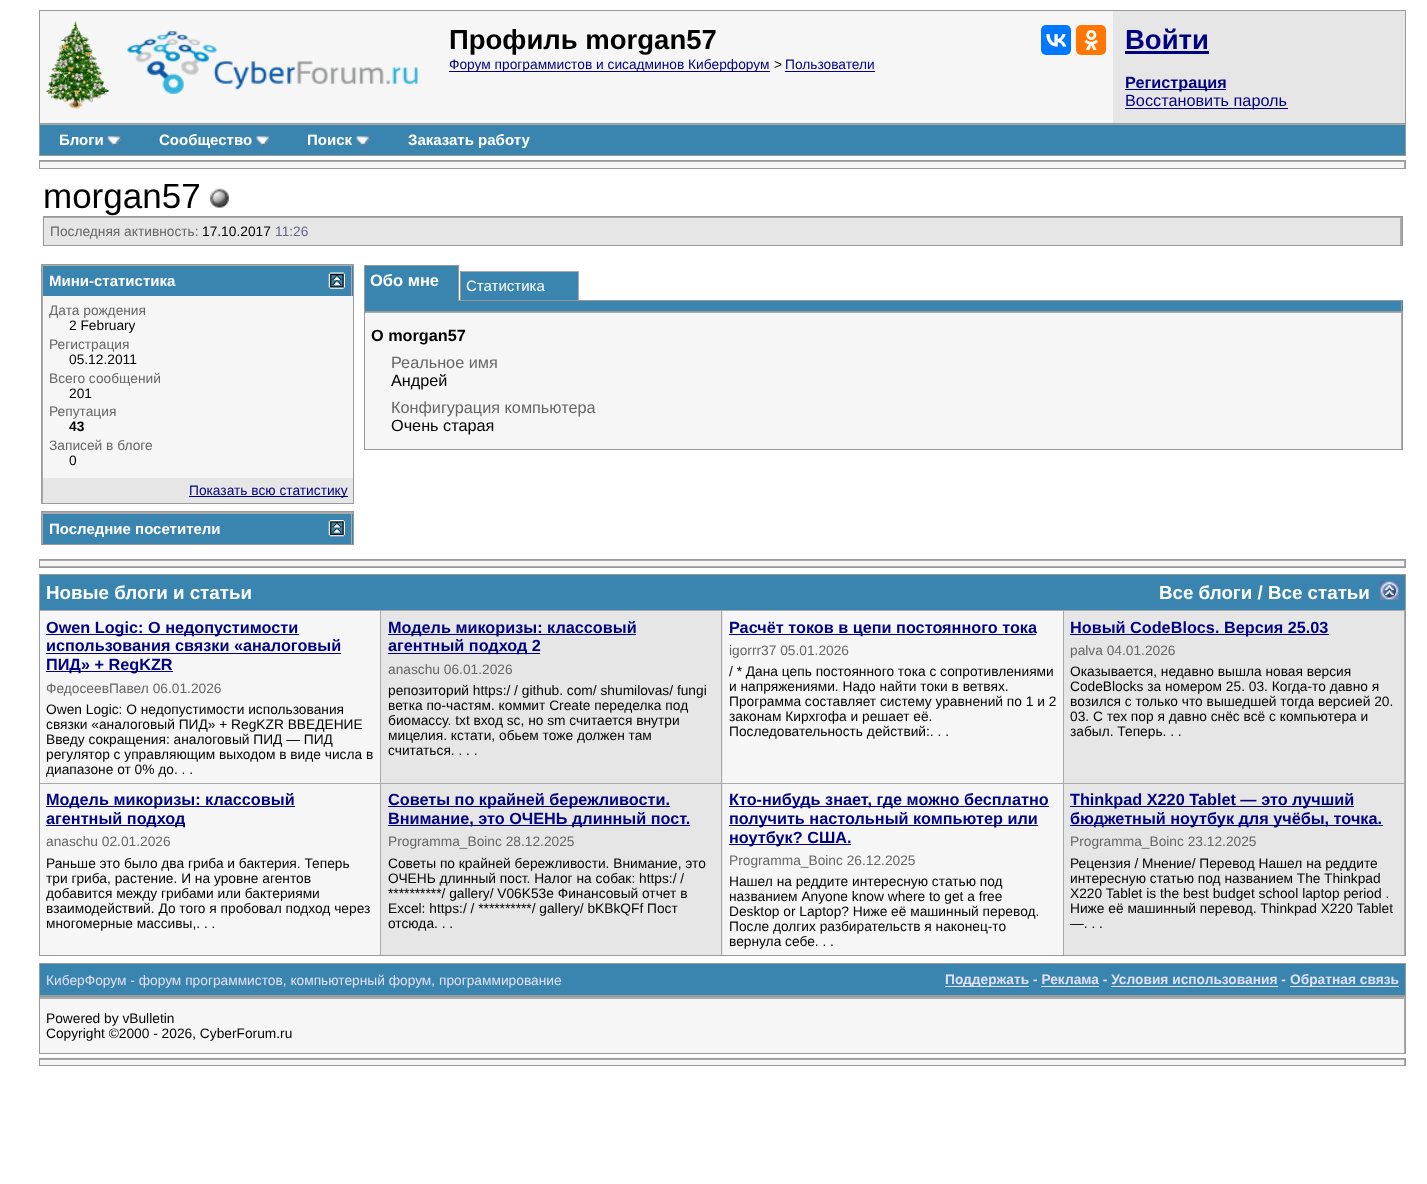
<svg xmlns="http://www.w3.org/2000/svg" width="1427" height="1184">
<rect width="100%" height="100%" fill="#fff"/>
<rect x="39.5" y="10.5" width="1366" height="113" fill="none" stroke="#999"/>
<rect x="40" y="11" width="1073" height="112" fill="#f6f6f6"/>
<image x="46" y="21" width="63" height="88" href="media/1.png"/>
<rect x="1113" y="11" width="292" height="112" fill="#e6e6e6"/>
<text x="1125" y="49" style="font-family:Liberation Sans;font-size:27.5px;font-weight:bold;fill:#000080">Войти</text>
<rect x="1125" y="51" width="84" height="3" fill="#000080"/>
<rect x="1125" y="89" width="101" height="1" fill="#000080"/>
<text x="1125" y="88" style="font-family:Liberation Sans;font-size:16.25px;font-weight:bold;fill:#000080">Регистрация</text>
<rect x="1125" y="108" width="163" height="1" fill="#000080"/>
<text x="1125" y="106" style="font-family:Liberation Sans;font-size:16.25px;fill:#000080">Восстановить пароль</text>
<image x="127" y="31" width="291" height="63" href="media/2.png"/>
<text x="449" y="49" style="font-family:Liberation Sans;font-size:27.5px;font-weight:bold;fill:#000">Профиль morgan57</text>
<rect x="1041" y="25" width="30" height="30" rx="5" fill="#07f"/>
<image x="1046" y="34" width="21" height="13" href="media/3.png"/>
<rect x="1076" y="25" width="30" height="30" rx="5" fill="#f70"/>
<image x="1084" y="30" width="14" height="20" href="media/4.png"/>
<rect x="449" y="71" width="321" height="1" fill="#000080"/>
<text x="449" y="69" style="font-family:Liberation Sans;font-size:13.75px;fill:#000080">Форум программистов и сисадминов Киберфорум</text>
<text x="774" y="69" style="font-family:Liberation Sans;font-size:13.75px;fill:#000">&gt;</text>
<text x="785" y="69" style="font-family:Liberation Sans;font-size:13.75px;fill:#000080">Пользователи</text>
<rect x="785" y="71" width="90" height="1" fill="#000080"/>
<rect x="1405" y="124" width="1" height="32" fill="#999"/>
<rect x="39" y="155" width="1367" height="1" fill="#999"/>
<rect x="39" y="124" width="1" height="32" fill="#999"/>
<rect x="40" y="125" width="1365" height="30" fill="#3a85af"/>
<rect x="40" y="124" width="1365" height="1" fill="#aaa"/>
<text x="59" y="145" style="font-family:Liberation Sans;font-size:15px;font-weight:bold;fill:#fff">Блоги</text>
<image x="107" y="136" width="15" height="9" href="media/5.png"/>
<text x="159" y="145" style="font-family:Liberation Sans;font-size:15px;font-weight:bold;fill:#fff">Сообщество</text>
<image x="256" y="136" width="14" height="9" href="media/6.png"/>
<text x="307" y="145" style="font-family:Liberation Sans;font-size:15px;font-weight:bold;fill:#fff">Поиск</text>
<image x="356" y="136" width="14" height="9" href="media/7.png"/>
<text x="408" y="145" style="font-family:Liberation Sans;font-size:15px;font-weight:bold;fill:#fff">Заказать работу</text>
<rect x="39.5" y="160.5" width="1366" height="8" fill="none" stroke="#999"/>
<rect x="40" y="162" width="1365" height="6" fill="#f6f6f6"/>
<rect x="40" y="161" width="1365" height="1" fill="#aaa"/>
<rect x="1404" y="161" width="1" height="7" fill="#aaa"/>
<text x="43" y="208" style="font-family:Liberation Sans;font-size:35px;fill:#000">morgan57</text>
<image x="210" y="188" width="19" height="20" href="media/8.png"/>
<rect x="43.5" y="216.5" width="1359" height="29" fill="#aaa" stroke="#999"/>
<rect x="44" y="218" width="1356" height="27" fill="#e6e6e6"/>
<text x="50" y="236" style="font-family:Liberation Sans;font-size:13.75px;fill:#666">Последняя активность:</text>
<text x="202" y="236" style="font-family:Liberation Sans;font-size:13.75px;fill:#000">17.10.2017</text>
<text x="275" y="236" style="font-family:Liberation Sans;font-size:13.75px;fill:#666686">11:26</text>
<rect x="42" y="265" width="1" height="238" fill="#aaa"/>
<rect x="41.5" y="264.5" width="312" height="239" fill="none" stroke="#999"/>
<rect x="43" y="266" width="310" height="30" fill="#3a85af"/>
<rect x="43" y="265" width="310" height="1" fill="#aaa"/>
<rect x="351" y="265" width="1" height="31" fill="#aaa"/>
<text x="49" y="286" style="font-family:Liberation Sans;font-size:15px;font-weight:bold;fill:#fff">Мини-статистика</text>
<image x="328" y="272" width="17" height="17" href="media/9.png"/>
<rect x="43" y="296" width="310" height="182" fill="#f6f6f6"/>
<text x="49" y="315" style="font-family:Liberation Sans;font-size:13.75px;fill:#666">Дата рождения</text>
<text x="69" y="330" style="font-family:Liberation Sans;font-size:13.75px;fill:#000">2 February</text>
<text x="49" y="349" style="font-family:Liberation Sans;font-size:13.75px;fill:#666">Регистрация</text>
<text x="69" y="364" style="font-family:Liberation Sans;font-size:13.75px;fill:#000">05.12.2011</text>
<text x="49" y="383" style="font-family:Liberation Sans;font-size:13.75px;fill:#666">Всего сообщений</text>
<text x="69" y="398" style="font-family:Liberation Sans;font-size:13.75px;fill:#000">201</text>
<text x="49" y="416" style="font-family:Liberation Sans;font-size:13.75px;fill:#666">Репутация</text>
<text x="69" y="431" style="font-family:Liberation Sans;font-size:13.75px;font-weight:bold;fill:#000">43</text>
<text x="49" y="450" style="font-family:Liberation Sans;font-size:13.75px;fill:#666">Записей в блоге</text>
<text x="69" y="465" style="font-family:Liberation Sans;font-size:13.75px;fill:#000">0</text>
<rect x="43" y="478" width="310" height="25" fill="#e6e6e6"/>
<rect x="189" y="496" width="159" height="1" fill="#000080"/>
<text x="189" y="495" style="font-family:Liberation Sans;font-size:13.75px;fill:#000080">Показать всю статистику</text>
<rect x="41.5" y="511.5" width="312" height="33" fill="#aaa" stroke="#999"/>
<rect x="43" y="514" width="310" height="30" fill="#3a85af"/>
<rect x="351" y="513" width="1" height="31" fill="#aaa"/>
<text x="49" y="534" style="font-family:Liberation Sans;font-size:15px;font-weight:bold;fill:#fff">Последние посетители</text>
<image x="328" y="520" width="17" height="17" href="media/10.png"/>
<rect x="365" y="266" width="93" height="35" fill="#3a85af"/>
<rect x="364" y="265" width="95" height="1" fill="#999"/>
<rect x="458" y="265" width="1" height="36" fill="#999"/>
<rect x="364" y="300" width="1" height="11" fill="#999"/>
<rect x="364" y="265" width="1" height="36" fill="#999"/>
<text x="370" y="286" style="font-family:Liberation Sans;font-size:16.5px;font-weight:bold;fill:#fff">Обо мне</text>
<rect x="461" y="272" width="117" height="28" fill="#3a85af"/>
<rect x="460" y="271" width="119" height="1" fill="#aaa"/>
<rect x="459" y="300" width="944" height="1" fill="#999"/>
<rect x="578" y="271" width="1" height="30" fill="#aaa"/>
<rect x="578" y="300" width="1" height="1" fill="#999"/>
<rect x="460" y="271" width="1" height="30" fill="#999"/>
<text x="466" y="291" style="font-family:Liberation Sans;font-size:15px;fill:#fff">Статистика</text>
<rect x="365" y="301" width="1038" height="10" fill="#3a85af"/>
<rect x="1401" y="300" width="1" height="11" fill="#999"/>
<rect x="364.5" y="311.5" width="1038" height="138" fill="#aaa" stroke="#999"/>
<rect x="365" y="313" width="1036" height="136" fill="#f6f6f6"/>
<text x="371" y="341" style="font-family:Liberation Sans;font-size:16.25px;font-weight:bold;fill:#000">О morgan57</text>
<text x="391" y="368" style="font-family:Liberation Sans;font-size:16.25px;fill:#666">Реальное имя</text>
<text x="391" y="386" style="font-family:Liberation Sans;font-size:16.25px;fill:#000">Андрей</text>
<text x="391" y="413" style="font-family:Liberation Sans;font-size:16.25px;fill:#666">Конфигурация компьютера</text>
<text x="391" y="431" style="font-family:Liberation Sans;font-size:16.25px;fill:#000">Очень старая</text>
<rect x="40" y="566" width="1365" height="1" fill="#aaa"/>
<rect x="39.5" y="559.5" width="1366" height="8" fill="none" stroke="#999"/>
<rect x="40" y="561" width="1365" height="5" fill="#f6f6f6"/>
<rect x="40" y="560" width="1365" height="1" fill="#aaa"/>
<rect x="1404" y="560" width="1" height="6" fill="#aaa"/>
<rect x="39.5" y="574.5" width="1366" height="381" fill="none" stroke="#999"/>
<rect x="40" y="575" width="1365" height="35" fill="#3a85af"/>
<text x="46" y="599" style="font-family:Liberation Sans;font-size:18.75px;font-weight:bold;fill:#fff">Новые блоги и статьи</text>
<text x="1159" y="599" style="font-family:Liberation Sans;font-size:18.75px;font-weight:bold;fill:#fff">Все блоги /</text>
<text x="1268" y="599" style="font-family:Liberation Sans;font-size:18.75px;font-weight:bold;fill:#fff">Все статьи</text>
<image x="1380" y="581" width="19" height="19" href="media/11.png"/>
<rect x="40" y="611" width="340" height="172" fill="#f6f6f6"/>
<rect x="40" y="610" width="1365" height="1" fill="#aaa"/>
<rect x="380" y="610" width="1" height="173" fill="#aaa"/>
<rect x="46" y="634" width="253" height="1" fill="#000080"/>
<text x="46" y="633" style="font-family:Liberation Sans;font-size:16.25px;font-weight:bold;fill:#000080">Owen Logic: О недопустимости</text>
<text x="46" y="651" style="font-family:Liberation Sans;font-size:16.25px;font-weight:bold;fill:#000080">использования связки «аналоговый</text>
<rect x="46" y="653" width="295" height="1" fill="#000080"/>
<rect x="46" y="671" width="127" height="1" fill="#000080"/>
<text x="46" y="670" style="font-family:Liberation Sans;font-size:16.25px;font-weight:bold;fill:#000080">ПИД» + RegKZR</text>
<text x="46" y="693" style="font-family:Liberation Sans;font-size:13.75px;fill:#666">ФедосеевПавел 06.01.2026</text>
<text x="46" y="714" style="font-family:Liberation Sans;font-size:13.75px;fill:#000">Owen Logic: О недопустимости использования</text>
<text x="46" y="729" style="font-family:Liberation Sans;font-size:13.75px;fill:#000">связки «аналоговый ПИД» + RegKZR ВВЕДЕНИЕ</text>
<text x="46" y="744" style="font-family:Liberation Sans;font-size:13.75px;fill:#000">Введу сокращения: аналоговый ПИД — ПИД</text>
<text x="46" y="759" style="font-family:Liberation Sans;font-size:13.75px;fill:#000">регулятор с управляющим выходом в виде числа в</text>
<text x="46" y="774" style="font-family:Liberation Sans;font-size:13.75px;fill:#000">диапазоне от 0% до. . .</text>
<rect x="381" y="611" width="342" height="172" fill="#e6e6e6"/>
<rect x="721" y="610" width="1" height="173" fill="#aaa"/>
<rect x="388" y="634" width="248" height="1" fill="#000080"/>
<text x="388" y="633" style="font-family:Liberation Sans;font-size:16.25px;font-weight:bold;fill:#000080">Модель микоризы: классовый</text>
<rect x="388" y="653" width="152" height="1" fill="#000080"/>
<text x="388" y="651" style="font-family:Liberation Sans;font-size:16.25px;font-weight:bold;fill:#000080">агентный подход 2</text>
<text x="388" y="674" style="font-family:Liberation Sans;font-size:13.75px;fill:#666">anaschu 06.01.2026</text>
<text x="388" y="695" style="font-family:Liberation Sans;font-size:13.75px;fill:#000">репозиторий https:/ / github. com/ shumilovas/ fungi</text>
<text x="388" y="710" style="font-family:Liberation Sans;font-size:13.75px;fill:#000">ветка по-частям. коммит Create переделка под</text>
<text x="388" y="725" style="font-family:Liberation Sans;font-size:13.75px;fill:#000">биомассу. txt вход sc, но sm считается внутри</text>
<text x="388" y="740" style="font-family:Liberation Sans;font-size:13.75px;fill:#000">мицелия. кстати, обьем тоже должен там</text>
<text x="388" y="755" style="font-family:Liberation Sans;font-size:13.75px;fill:#000">считаться. . . .</text>
<rect x="723" y="611" width="340" height="172" fill="#f6f6f6"/>
<rect x="1063" y="610" width="1" height="173" fill="#aaa"/>
<rect x="729" y="634" width="307" height="1" fill="#000080"/>
<text x="729" y="633" style="font-family:Liberation Sans;font-size:16.25px;font-weight:bold;fill:#000080">Расчёт токов в цепи постоянного тока</text>
<text x="729" y="655" style="font-family:Liberation Sans;font-size:13.75px;fill:#666">igorrr37 05.01.2026</text>
<text x="729" y="676" style="font-family:Liberation Sans;font-size:13.75px;fill:#000">/ * Дана цепь постоянного тока с сопротивлениями</text>
<text x="729" y="691" style="font-family:Liberation Sans;font-size:13.75px;fill:#000">и напряжениями. Надо найти токи в ветвях.</text>
<text x="729" y="706" style="font-family:Liberation Sans;font-size:13.75px;fill:#000">Программа составляет систему уравнений по 1 и 2</text>
<text x="729" y="721" style="font-family:Liberation Sans;font-size:13.75px;fill:#000">законам Кирхгофа и решает её.</text>
<text x="729" y="736" style="font-family:Liberation Sans;font-size:13.75px;fill:#000">Последовательность действий:. . .</text>
<rect x="1064" y="611" width="340" height="172" fill="#e6e6e6"/>
<rect x="1404" y="610" width="1" height="173" fill="#aaa"/>
<rect x="1070" y="634" width="259" height="1" fill="#000080"/>
<text x="1070" y="633" style="font-family:Liberation Sans;font-size:16.25px;font-weight:bold;fill:#000080">Новый CodeBlocs. Версия 25.03</text>
<text x="1070" y="655" style="font-family:Liberation Sans;font-size:13.75px;fill:#666">palva 04.01.2026</text>
<text x="1070" y="676" style="font-family:Liberation Sans;font-size:13.75px;fill:#000">Оказывается, недавно вышла новая версия</text>
<text x="1070" y="691" style="font-family:Liberation Sans;font-size:13.75px;fill:#000">CodeBlocks за номером 25. 03. Когда-то давно я</text>
<text x="1070" y="706" style="font-family:Liberation Sans;font-size:13.75px;fill:#000">возился с только что вышедшей тогда версией 20.</text>
<text x="1070" y="721" style="font-family:Liberation Sans;font-size:13.75px;fill:#000">03. С тех пор я давно снёс всё с компьютера и</text>
<text x="1070" y="736" style="font-family:Liberation Sans;font-size:13.75px;fill:#000">забыл. Теперь. . .</text>
<rect x="40" y="784" width="340" height="171" fill="#f6f6f6"/>
<rect x="40" y="783" width="1365" height="1" fill="#aaa"/>
<rect x="380" y="783" width="1" height="172" fill="#aaa"/>
<rect x="46" y="806" width="249" height="1" fill="#000080"/>
<text x="46" y="805" style="font-family:Liberation Sans;font-size:16.25px;font-weight:bold;fill:#000080">Модель микоризы: классовый</text>
<rect x="46" y="825" width="139" height="1" fill="#000080"/>
<text x="46" y="824" style="font-family:Liberation Sans;font-size:16.25px;font-weight:bold;fill:#000080">агентный подход</text>
<text x="46" y="846" style="font-family:Liberation Sans;font-size:13.75px;fill:#666">anaschu 02.01.2026</text>
<text x="46" y="868" style="font-family:Liberation Sans;font-size:13.75px;fill:#000">Раньше это было два гриба и бактерия. Теперь</text>
<text x="46" y="883" style="font-family:Liberation Sans;font-size:13.75px;fill:#000">три гриба, растение. И на уровне агентов</text>
<text x="46" y="898" style="font-family:Liberation Sans;font-size:13.75px;fill:#000">добавится между грибами или бактериями</text>
<text x="46" y="913" style="font-family:Liberation Sans;font-size:13.75px;fill:#000">взаимодействий. До того я пробовал подход через</text>
<text x="46" y="928" style="font-family:Liberation Sans;font-size:13.75px;fill:#000">многомерные массивы,. . .</text>
<rect x="381" y="784" width="342" height="171" fill="#e6e6e6"/>
<rect x="721" y="783" width="1" height="172" fill="#aaa"/>
<rect x="388" y="806" width="282" height="1" fill="#000080"/>
<text x="388" y="805" style="font-family:Liberation Sans;font-size:16.25px;font-weight:bold;fill:#000080">Советы по крайней бережливости.</text>
<rect x="388" y="825" width="302" height="1" fill="#000080"/>
<text x="388" y="824" style="font-family:Liberation Sans;font-size:16.25px;font-weight:bold;fill:#000080">Внимание, это ОЧЕНЬ длинный пост.</text>
<text x="388" y="846" style="font-family:Liberation Sans;font-size:13.75px;fill:#666">Programma_Boinc 28.12.2025</text>
<text x="388" y="868" style="font-family:Liberation Sans;font-size:13.75px;fill:#000">Советы по крайней бережливости. Внимание, это</text>
<text x="388" y="883" style="font-family:Liberation Sans;font-size:13.75px;fill:#000">ОЧЕНЬ длинный пост. Налог на собак: https:/ /</text>
<text x="388" y="898" style="font-family:Liberation Sans;font-size:13.75px;fill:#000">**********/ gallery/ V06K53e Финансовый отчет в</text>
<text x="388" y="913" style="font-family:Liberation Sans;font-size:13.75px;fill:#000">Excel: https:/ / **********/ gallery/ bKBkQFf Пост</text>
<text x="388" y="928" style="font-family:Liberation Sans;font-size:13.75px;fill:#000">отсюда. . .</text>
<rect x="723" y="784" width="340" height="171" fill="#f6f6f6"/>
<rect x="1063" y="783" width="1" height="172" fill="#aaa"/>
<rect x="729" y="806" width="320" height="1" fill="#000080"/>
<text x="729" y="805" style="font-family:Liberation Sans;font-size:16.25px;font-weight:bold;fill:#000080">Кто-нибудь знает, где можно бесплатно</text>
<rect x="729" y="825" width="309" height="1" fill="#000080"/>
<text x="729" y="824" style="font-family:Liberation Sans;font-size:16.25px;font-weight:bold;fill:#000080">получить настольный компьютер или</text>
<rect x="729" y="844" width="122" height="1" fill="#000080"/>
<text x="729" y="843" style="font-family:Liberation Sans;font-size:16.25px;font-weight:bold;fill:#000080">ноутбук? США.</text>
<text x="729" y="865" style="font-family:Liberation Sans;font-size:13.75px;fill:#666">Programma_Boinc 26.12.2025</text>
<text x="729" y="886" style="font-family:Liberation Sans;font-size:13.75px;fill:#000">Нашел на реддите интересную статью под</text>
<text x="729" y="901" style="font-family:Liberation Sans;font-size:13.75px;fill:#000">названием Anyone know where to get a free</text>
<text x="729" y="916" style="font-family:Liberation Sans;font-size:13.75px;fill:#000">Desktop or Laptop? Ниже её машинный перевод.</text>
<text x="729" y="931" style="font-family:Liberation Sans;font-size:13.75px;fill:#000">После долгих разбирательств я наконец-то</text>
<text x="729" y="946" style="font-family:Liberation Sans;font-size:13.75px;fill:#000">вернула себе. . .</text>
<rect x="1064" y="784" width="340" height="171" fill="#e6e6e6"/>
<rect x="1404" y="783" width="1" height="172" fill="#aaa"/>
<rect x="1070" y="806" width="284" height="1" fill="#000080"/>
<text x="1070" y="805" style="font-family:Liberation Sans;font-size:16.25px;font-weight:bold;fill:#000080">Thinkpad X220 Tablet — это лучший</text>
<rect x="1070" y="825" width="313" height="1" fill="#000080"/>
<text x="1070" y="824" style="font-family:Liberation Sans;font-size:16.25px;font-weight:bold;fill:#000080">бюджетный ноутбук для учёбы, точка.</text>
<text x="1070" y="846" style="font-family:Liberation Sans;font-size:13.75px;fill:#666">Programma_Boinc 23.12.2025</text>
<text x="1070" y="868" style="font-family:Liberation Sans;font-size:13.75px;fill:#000">Рецензия / Мнение/ Перевод Нашел на реддите</text>
<text x="1070" y="883" style="font-family:Liberation Sans;font-size:13.75px;fill:#000">интересную статью под названием The Thinkpad</text>
<text x="1070" y="898" style="font-family:Liberation Sans;font-size:13.75px;fill:#000">X220 Tablet is the best budget school laptop period .</text>
<text x="1070" y="913" style="font-family:Liberation Sans;font-size:13.75px;fill:#000">Ниже её машинный перевод. Thinkpad X220 Tablet</text>
<text x="1070" y="928" style="font-family:Liberation Sans;font-size:13.75px;fill:#000">—. . .</text>
<rect x="39.5" y="963.5" width="1366" height="32" fill="none" stroke="#999"/>
<rect x="40" y="964" width="1365" height="31" fill="#3a85af"/>
<text x="46" y="985" style="font-family:Liberation Sans;font-size:13.75px;fill:#e0e0f6">КиберФорум - форум программистов, компьютерный форум, программирование</text>
<rect x="945" y="986" width="84" height="1" fill="#e0e0f6"/>
<text x="945" y="984" style="font-family:Liberation Sans;font-size:13.75px;font-weight:bold;fill:#e0e0f6">Поддержать - Реклама - Условия использования -</text>
<rect x="1041" y="986" width="58" height="1" fill="#e0e0f6"/>
<rect x="1111" y="986" width="167" height="1" fill="#e0e0f6"/>
<rect x="1290" y="986" width="109" height="1" fill="#e0e0f6"/>
<text x="1290" y="984" style="font-family:Liberation Sans;font-size:13.75px;font-weight:bold;fill:#e0e0f6">Обратная связь</text>
<rect x="40" y="997" width="1365" height="1" fill="#aaa"/>
<rect x="39.5" y="996.5" width="1366" height="57" fill="none" stroke="#999"/>
<rect x="40" y="999" width="1364" height="54" fill="#f6f6f6"/>
<rect x="40" y="998" width="1365" height="1" fill="#aaa"/>
<rect x="1404" y="998" width="1" height="55" fill="#aaa"/>
<text x="46" y="1023" style="font-family:Liberation Sans;font-size:13.75px;fill:#000">Powered by vBulletin</text>
<text x="46" y="1038" style="font-family:Liberation Sans;font-size:13.75px;fill:#000">Copyright ©2000 - 2026, CyberForum.ru</text>
<rect x="39.5" y="1058.5" width="1366" height="7" fill="none" stroke="#999"/>
<rect x="40" y="1060" width="1365" height="5" fill="#f6f6f6"/>
<rect x="40" y="1059" width="1365" height="1" fill="#aaa"/>
<rect x="1404" y="1059" width="1" height="6" fill="#aaa"/>
</svg>
